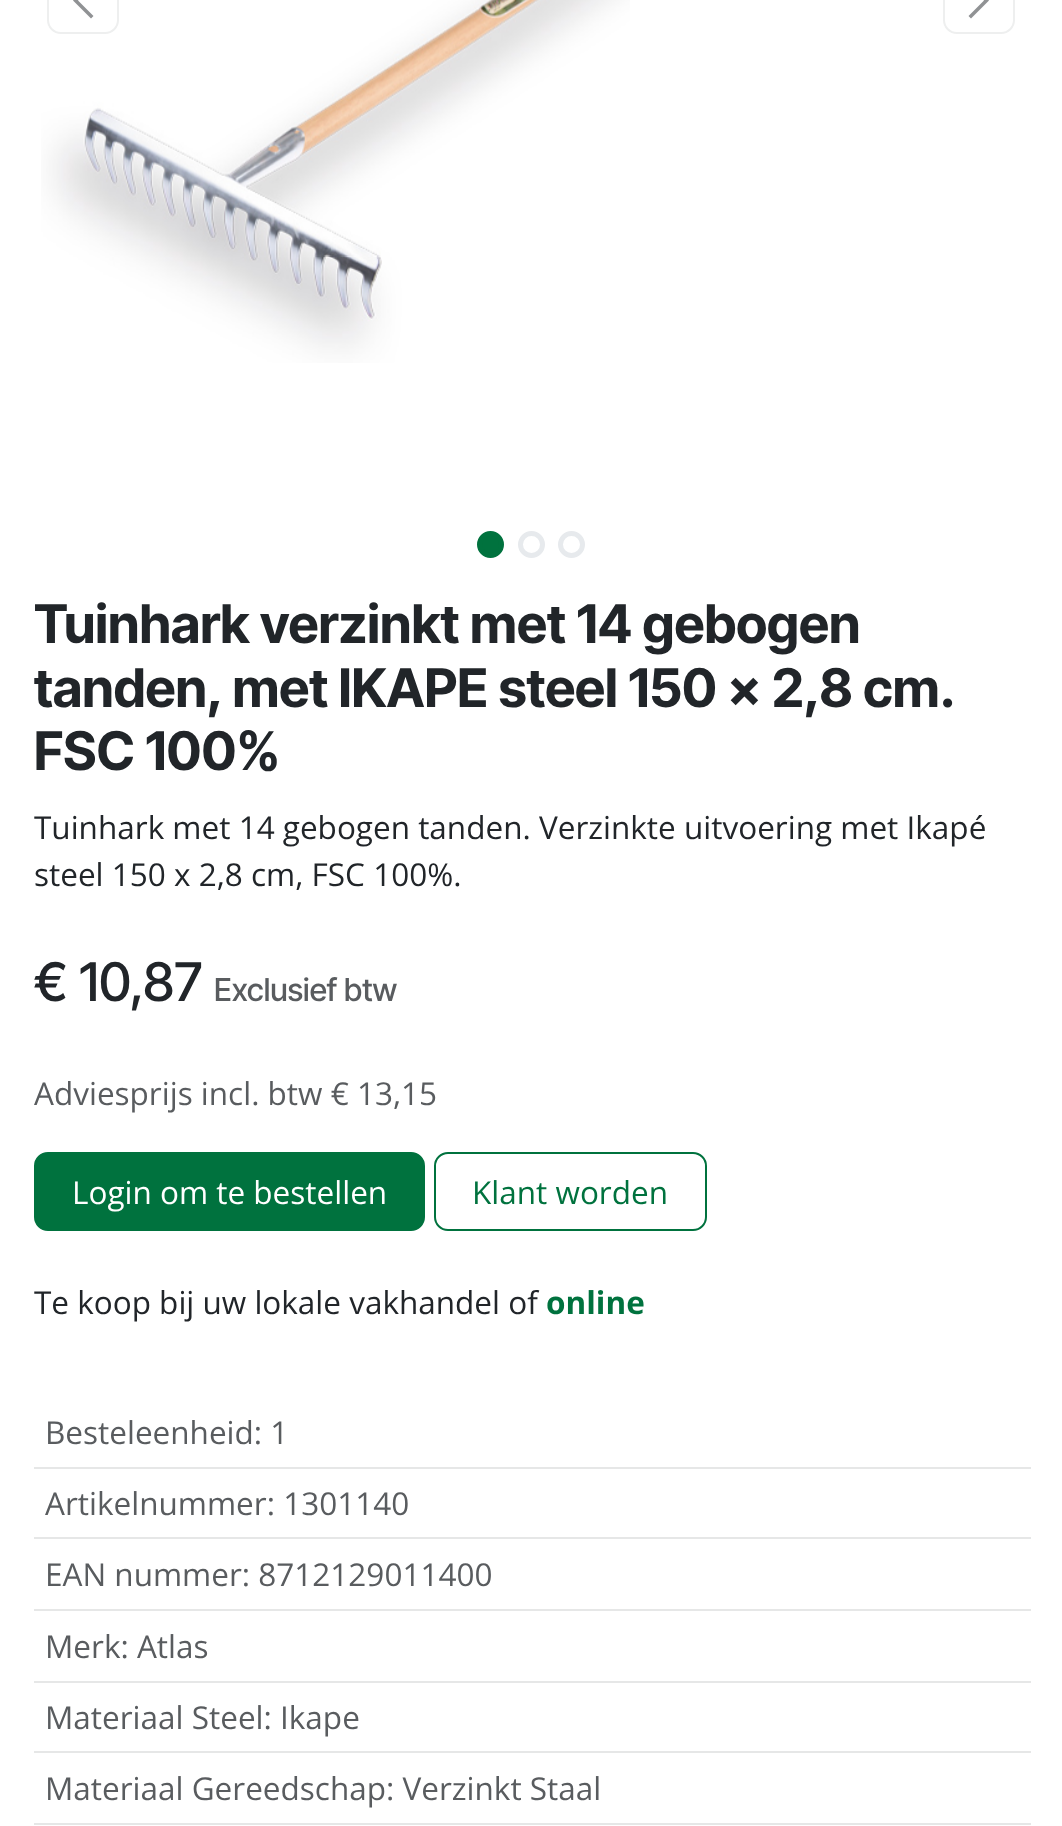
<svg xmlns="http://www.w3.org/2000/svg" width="1062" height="1826">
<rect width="100%" height="100%" fill="#fff"/>
<image x="41" y="0" width="589" height="363" href="media/1.png"/>
<rect x="48" y="-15" width="70" height="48" rx="13" fill="none" stroke="#eeefef" stroke-width="2"/>
<path d="M73 .5l18-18l2.5 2.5l-15.5 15.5l15.5 15.5l-2.5 2.5z" fill="#909294"/>
<rect x="944" y="-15" width="70" height="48" rx="13" fill="none" stroke="#eeefef" stroke-width="2"/>
<path d="M989 .5l-18 18l-2.5-2.5l15.5-15.5l-15.5-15.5l2.5-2.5z" fill="#909294"/>
<circle cx="490.5" cy="544.5" r="11" fill="#00723e" stroke="#00723e" stroke-width="5"/>
<circle cx="531.5" cy="544.5" r="11" fill="none" stroke="#e7eaed" stroke-width="5"/>
<circle cx="571.5" cy="544.5" r="11" fill="none" stroke="#e7eaed" stroke-width="5"/>
<text x="34" y="643" style="font-family:Inter Tight;font-size:53.2px;font-weight:bold;fill:#212529">Tuinhark verzinkt met 14 gebogen</text>
<text x="34" y="707" word-spacing="-0.25" style="font-family:Inter Tight;font-size:53.2px;font-weight:bold;fill:#212529">tanden, met IKAPE steel 150 x 2,8 cm.</text>
<text x="34" y="770" style="font-family:Inter Tight;font-size:53.2px;font-weight:bold;fill:#212529">FSC 100%</text>
<text x="34" y="839" style="font-family:Open Sans;font-size:31.5px;fill:#212529">Tuinhark met 14 gebogen tanden. Verzinkte uitvoering met Ikapé</text>
<text x="34" y="886" style="font-family:Open Sans;font-size:31.5px;fill:#212529">steel 150 x 2,8 cm, FSC 100%.</text>
<text x="34" y="1001" style="font-family:Inter Tight;font-size:53.2px;font-weight:500;fill:#212529">€ 10,87</text>
<text x="214" y="1001" style="font-family:Inter Tight;font-size:31.5px;font-weight:500;fill:#595c5f">Exclusief btw</text>
<text x="34" y="1105" style="font-family:Open Sans;font-size:31.5px;fill:#595c5f">Adviesprijs incl. btw € 13,15</text>
<rect x="35" y="1153" width="389" height="77" rx="13" fill="#00723e" stroke="#00723e" stroke-width="2"/>
<text x="72" y="1204" style="font-family:Open Sans;font-size:31.5px;fill:#fff">Login om te bestellen</text>
<rect x="435" y="1153" width="271" height="77" rx="13" fill="none" stroke="#00723e" stroke-width="2"/>
<text x="472" y="1204" style="font-family:Open Sans;font-size:31.5px;fill:#00723e">Klant worden</text>
<text x="34" y="1314" style="font-family:Open Sans;font-size:31.5px;fill:#212529">Te koop bij uw lokale vakhandel of</text>
<text x="546" y="1314" style="font-family:Open Sans;font-size:31.5px;font-weight:bold;fill:#00723e">online</text>
<rect x="34" y="1467" width="997" height="2" fill="#e6e7e7"/>
<text x="45" y="1444" style="font-family:Open Sans;font-size:31.5px;fill:#595c5f">Besteleenheid: 1</text>
<rect x="34" y="1537" width="997" height="2" fill="#e6e7e7"/>
<text x="45" y="1515" style="font-family:Open Sans;font-size:31.5px;fill:#595c5f">Artikelnummer: 1301140</text>
<rect x="34" y="1609" width="997" height="2" fill="#e6e7e7"/>
<text x="45" y="1586" style="font-family:Open Sans;font-size:31.5px;fill:#595c5f">EAN nummer: 8712129011400</text>
<rect x="34" y="1681" width="997" height="2" fill="#e6e7e7"/>
<text x="45" y="1658" style="font-family:Open Sans;font-size:31.5px;fill:#595c5f">Merk: Atlas</text>
<rect x="34" y="1751" width="997" height="2" fill="#e6e7e7"/>
<text x="45" y="1729" style="font-family:Open Sans;font-size:31.5px;fill:#595c5f">Materiaal Steel: Ikape</text>
<rect x="34" y="1823" width="997" height="2" fill="#e6e7e7"/>
<text x="45" y="1800" style="font-family:Open Sans;font-size:31.5px;fill:#595c5f">Materiaal Gereedschap: Verzinkt Staal</text>
</svg>
